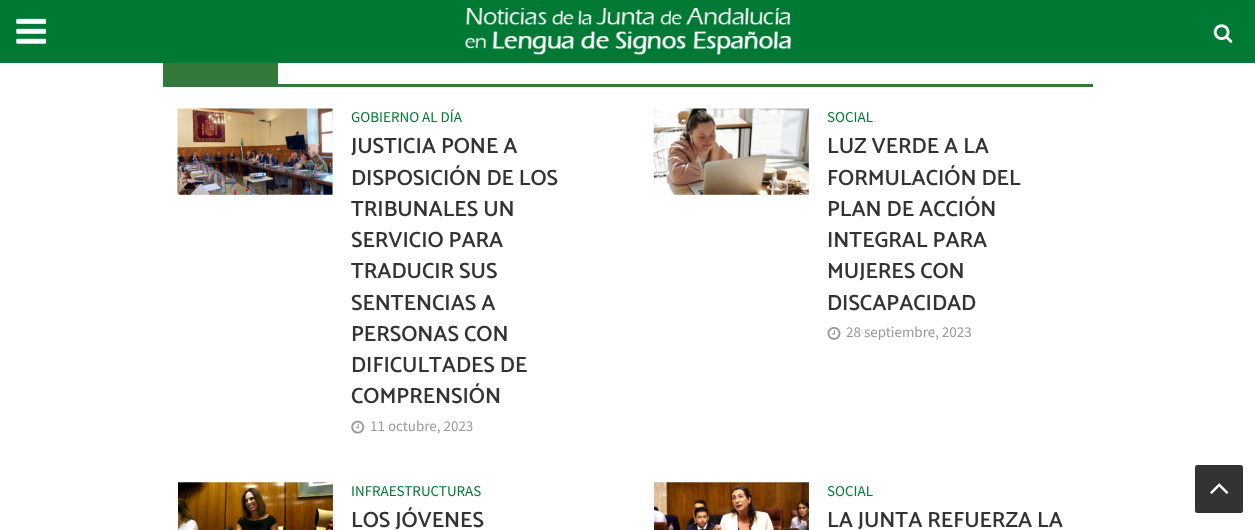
<svg xmlns="http://www.w3.org/2000/svg" width="1255" height="530">
<rect width="100%" height="100%" fill="#fff"/>
<rect width="1255" height="63" fill="#007934"/>
<image x="16" y="18" width="31" height="26" href="media/1.png"/>
<image x="464" y="8" width="327" height="47" href="media/2.png"/>
<image x="1213" y="24" width="20" height="19" href="media/3.png"/>
<rect x="163" y="63" width="115" height="21" fill="#35783c"/>
<rect x="163" y="84" width="930" height="3" fill="#35783c"/>
<rect x="178" y="109" width="155" height="86" fill="#f2f2f2"/>
<image x="177" y="108" width="156" height="87" href="media/4.png"/>
<text x="351" y="122" style="font-family:Source Sans Pro;font-size:15px;fill:#007934">GOBIERNO AL DÍA</text>
<text x="351" y="153" style="font-family:Catamaran;font-size:22px;font-weight:600;fill:#333">JUSTICIA PONE A</text>
<text x="351" y="185" style="font-family:Catamaran;font-size:22px;font-weight:600;fill:#333">DISPOSICIÓN DE LOS</text>
<text x="351" y="216" style="font-family:Catamaran;font-size:22px;font-weight:600;fill:#333">TRIBUNALES UN</text>
<text x="351" y="247" style="font-family:Catamaran;font-size:22px;font-weight:600;fill:#333">SERVICIO PARA</text>
<text x="351" y="278" style="font-family:Catamaran;font-size:22px;font-weight:600;fill:#333">TRADUCIR SUS</text>
<text x="351" y="310" style="font-family:Catamaran;font-size:22px;font-weight:600;fill:#333">SENTENCIAS A</text>
<text x="351" y="341" style="font-family:Catamaran;font-size:22px;font-weight:600;fill:#333">PERSONAS CON</text>
<text x="351" y="372" style="font-family:Catamaran;font-size:22px;font-weight:600;fill:#333">DIFICULTADES DE</text>
<text x="351" y="403" style="font-family:Catamaran;font-size:22px;font-weight:600;fill:#333">COMPRENSIÓN</text>
<image x="351" y="420" width="14" height="14" href="media/5.png"/>
<text x="370" y="431" style="font-family:Source Sans Pro;font-size:15px;fill:#999">11 octubre, 2023</text>
<rect x="654" y="109" width="155" height="86" fill="#f2f2f2"/>
<image x="653" y="108" width="156" height="87" href="media/6.png"/>
<text x="827" y="122" style="font-family:Source Sans Pro;font-size:15px;fill:#007934">SOCIAL</text>
<text x="827" y="153" style="font-family:Catamaran;font-size:22px;font-weight:600;fill:#333">LUZ VERDE A LA</text>
<text x="827" y="185" style="font-family:Catamaran;font-size:22px;font-weight:600;fill:#333">FORMULACIÓN DEL</text>
<text x="827" y="216" style="font-family:Catamaran;font-size:22px;font-weight:600;fill:#333">PLAN DE ACCIÓN</text>
<text x="827" y="247" style="font-family:Catamaran;font-size:22px;font-weight:600;fill:#333">INTEGRAL PARA</text>
<text x="827" y="278" style="font-family:Catamaran;font-size:22px;font-weight:600;fill:#333">MUJERES CON</text>
<text x="827" y="310" style="font-family:Catamaran;font-size:22px;font-weight:600;fill:#333">DISCAPACIDAD</text>
<image x="827" y="327" width="14" height="13" href="media/7.png"/>
<text x="846" y="337" style="font-family:Source Sans Pro;font-size:15px;fill:#999">28 septiembre, 2023</text>
<image x="178" y="482" width="155" height="48" href="media/8.png"/>
<text x="351" y="496" style="font-family:Source Sans Pro;font-size:15px;fill:#007934">INFRAESTRUCTURAS</text>
<text x="351" y="527" style="font-family:Catamaran;font-size:22px;font-weight:600;fill:#333">LOS JÓVENES</text>
<image x="654" y="482" width="155" height="48" href="media/9.png"/>
<text x="827" y="496" style="font-family:Source Sans Pro;font-size:15px;fill:#007934">SOCIAL</text>
<text x="827" y="527" style="font-family:Catamaran;font-size:22px;font-weight:600;fill:#333">LA JUNTA REFUERZA LA</text>
<rect x="1195" y="465" width="48" height="48" rx="2.5" fill="#333"/>
<image x="1210" y="483" width="19" height="11" href="media/10.png"/>
</svg>
